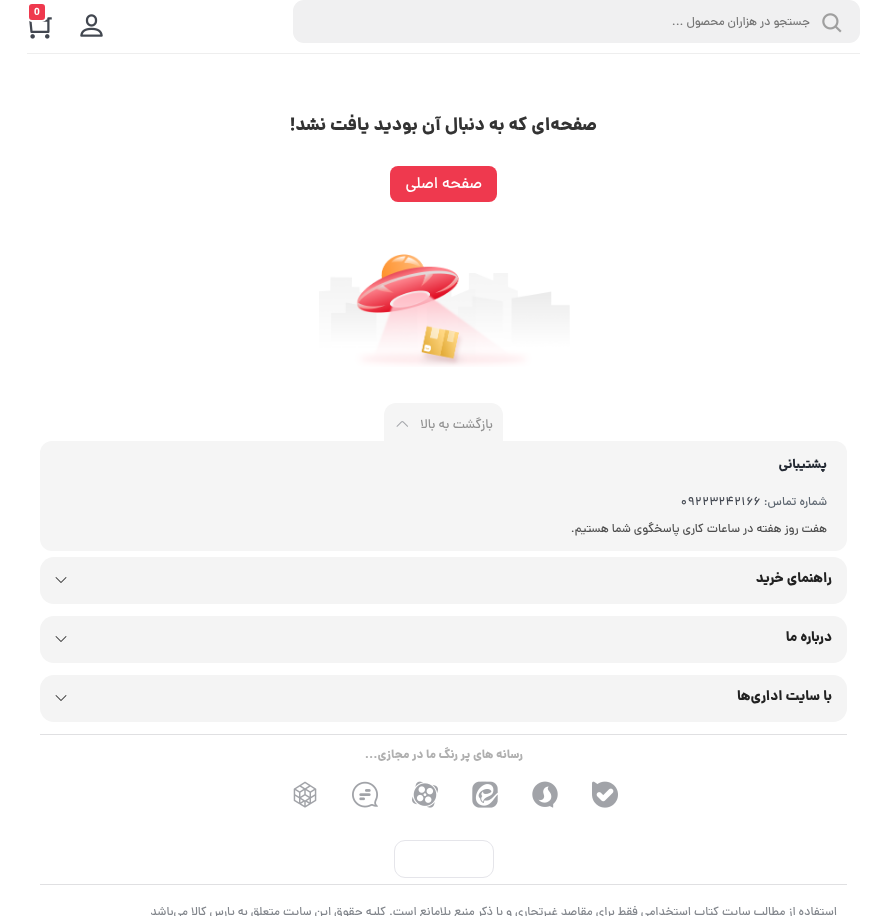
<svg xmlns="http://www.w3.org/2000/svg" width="887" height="916">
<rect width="100%" height="100%" fill="#fff"/>
<rect x="27" y="53" width="833" height="1" fill="#eee"/>
<image x="29" y="17" width="23" height="22" href="media/1.png"/>
<rect x="28" y="3" width="18" height="18" rx="4" fill="#ef394e" stroke="#fff" stroke-width="2"/>
<text x="34" y="15" style="font-family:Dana;font-size:10px;font-weight:800;fill:#fff">0</text>
<image x="80" y="14" width="23" height="23" href="media/2.png"/>
<rect x="293" width="567" height="43" rx="11" fill="#f0f0f1"/>
<image x="822" y="13" width="20" height="20" href="media/3.png"/>
<text x="810" y="25" style="font-family:Dana;font-size:12px;font-weight:500;direction:rtl;fill:#757575">جستجو در هزاران محصول ...</text>
<text x="597" y="130" style="font-family:Dana;font-size:18px;font-weight:800;direction:rtl;fill:#333">صفحه‌ای که به دنبال آن بودید یافت نشد!</text>
<rect x="390" y="166" width="107" height="36" rx="8" fill="#ef394e"/>
<text x="482" y="188" style="font-family:Dana;font-size:16px;font-weight:500;direction:rtl;fill:#fff">صفحه اصلی</text>
<image x="319" y="254" width="251" height="113" href="media/4.png"/>
<path d="M396 403h95c6.5 0 12 5.5 12 12v26h-119v-26c0-6.5 5.5-12 12-12z" fill="#f5f5f5"/>
<text x="493" y="428" style="font-family:Dana;font-size:13px;font-weight:500;direction:rtl;fill:#919191">بازگشت به بالا</text>
<image x="396" y="421" width="12" height="6" href="media/5.png"/>
<rect x="40" y="441" width="807" height="110" rx="12" fill="#f5f5f5"/>
<text x="827" y="468" style="font-family:Dana;font-size:13px;font-weight:800;direction:rtl;fill:#232933">پشتیبانی</text>
<text x="827" y="505" style="font-family:Dana;font-size:12px;font-weight:500;direction:rtl;fill:#5d6670">شماره تماس:</text>
<text x="681" y="505" style="font-family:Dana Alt;font-size:12px;font-weight:500;letter-spacing:1px;fill:#424750">09223242166</text>
<text x="827" y="532" style="font-family:Dana;font-size:12px;font-weight:500;direction:rtl;fill:#4d4d4d">هفت روز هفته در ساعات کاری پاسخگوی شما هستیم.</text>
<rect x="40" y="557" width="807" height="47" rx="14" fill="#f4f4f4"/>
<text x="832" y="582" style="font-family:Dana;font-size:14px;font-weight:800;direction:rtl;fill:#222">راهنمای خرید</text>
<image x="55" y="577" width="12" height="6" href="media/6.png"/>
<rect x="40" y="616" width="807" height="47" rx="14" fill="#f4f4f4"/>
<text x="832" y="641" style="font-family:Dana;font-size:14px;font-weight:800;direction:rtl;fill:#222">درباره ما</text>
<image x="55" y="636" width="12" height="6" href="media/6.png"/>
<rect x="40" y="675" width="807" height="47" rx="14" fill="#f4f4f4"/>
<text x="832" y="700" style="font-family:Dana;font-size:14px;font-weight:800;direction:rtl;fill:#222">با سایت اداری‌ها</text>
<image x="55" y="695" width="12" height="6" href="media/6.png"/>
<rect x="40" y="734" width="807" height="1" fill="#e0e0e2"/>
<text x="523" y="758" style="font-family:Dana;font-size:12px;font-weight:800;direction:rtl;fill:#b0b0b0">رسانه های پر رنگ ما در مجازی...</text>
<image x="592" y="781" width="26" height="27" href="media/7.png"/>
<image x="532" y="781" width="26" height="27" href="media/8.png"/>
<image x="472" y="781" width="26" height="27" href="media/9.png"/>
<image x="412" y="781" width="26" height="27" href="media/10.png"/>
<image x="352" y="781" width="26" height="27" href="media/11.png"/>
<image x="293" y="781" width="24" height="27" href="media/12.png"/>
<rect x="394.5" y="840.5" width="99" height="37" rx="10.5" fill="none" stroke="#e5e5ea"/>
<rect x="40" y="884" width="807" height="1" fill="#e0e0e2"/>
<text x="837" y="915" style="font-family:Dana;font-size:12px;font-weight:500;direction:rtl;fill:#81858b">استفاده از مطالب سایت کتاب استخدامی فقط برای مقاصد غیرتجاری و با ذکر منبع بلامانع است. کلیه حقوق این سایت متعلق به پارس کالا می‌باشد</text>
</svg>
